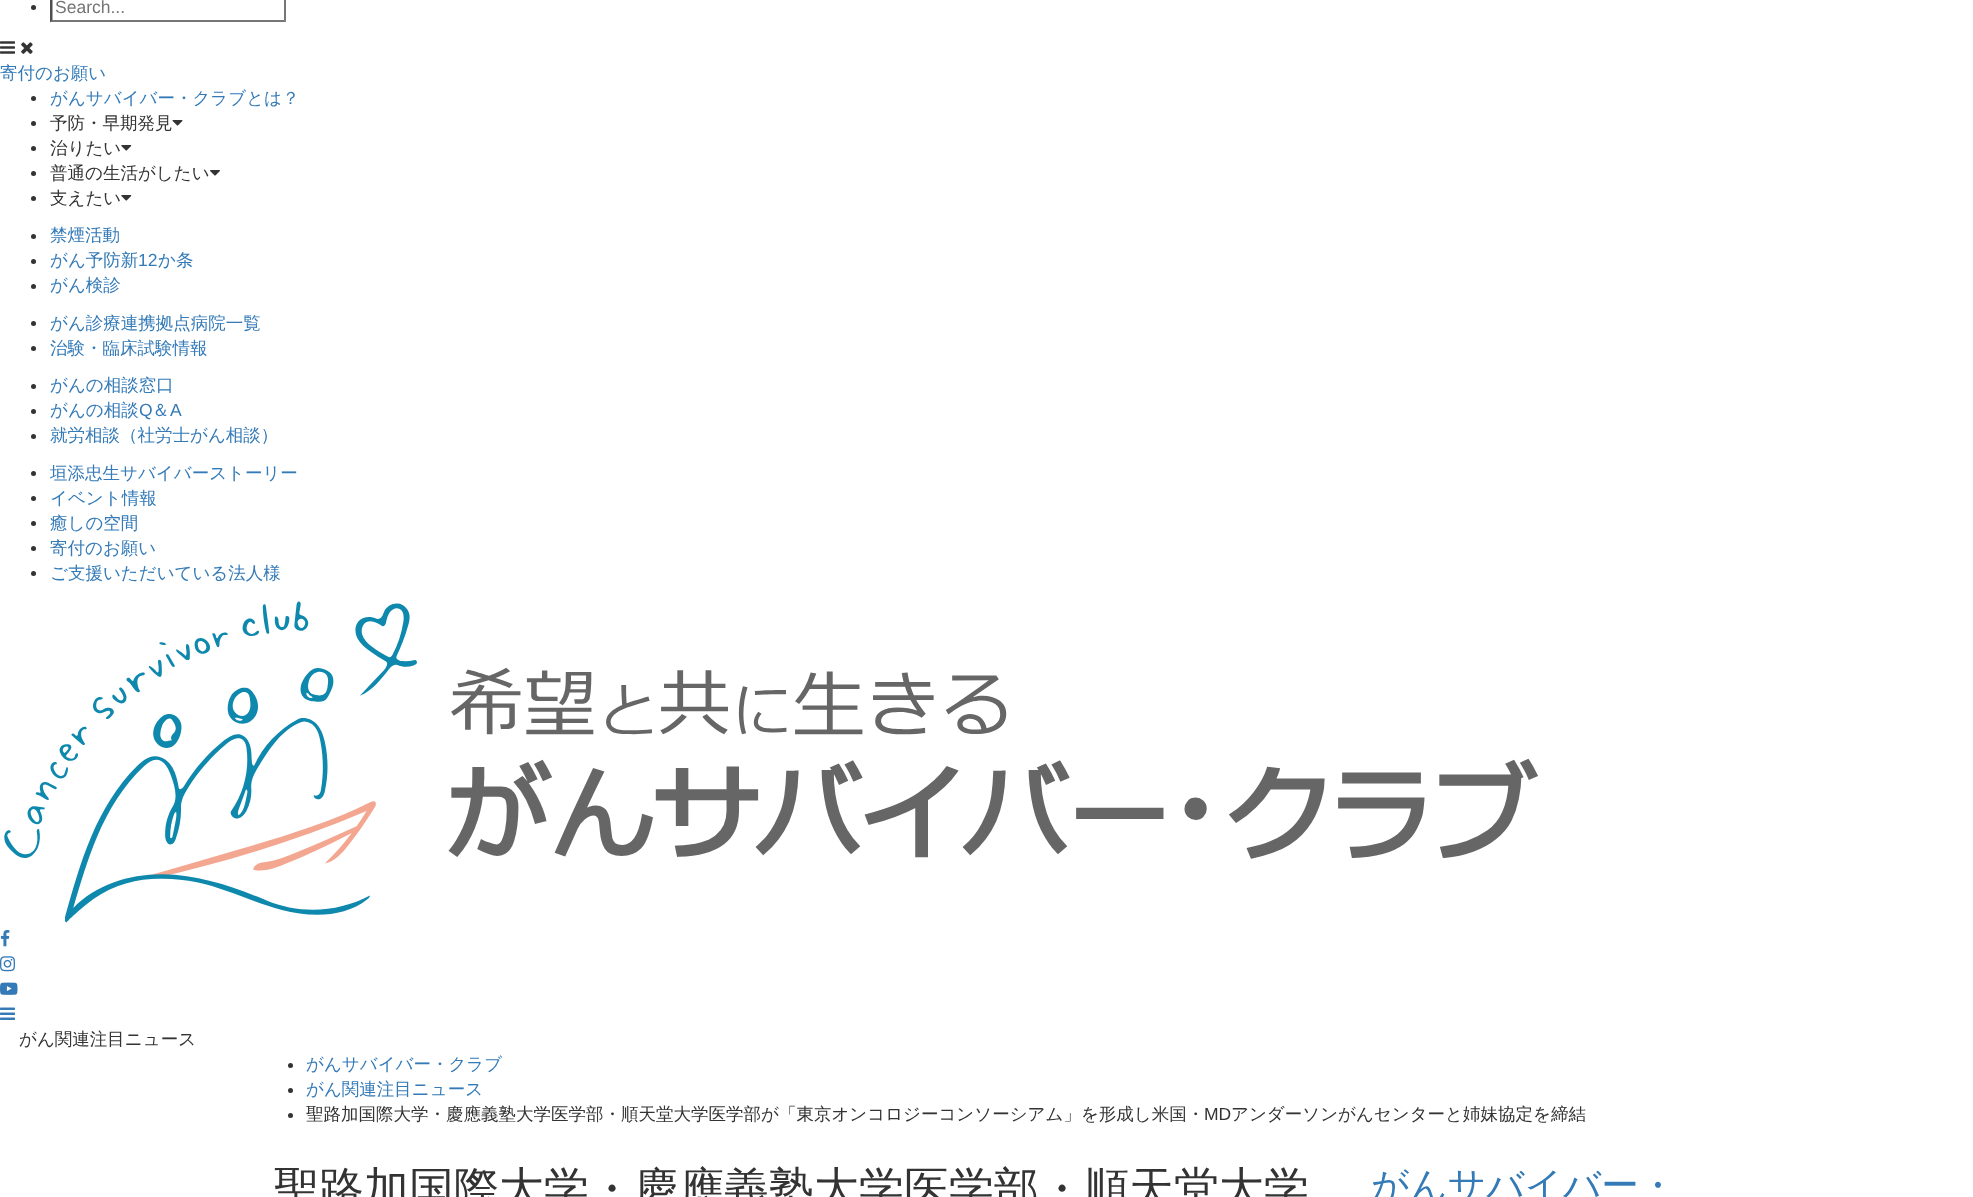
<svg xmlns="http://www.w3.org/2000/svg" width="1973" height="1197">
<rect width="100%" height="100%" fill="#fff"/>
<circle cx="33.5" cy="7.5" r="2.5" fill="#333"/>
<path d="M286-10v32.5l-2-2.5v-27.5z" fill="#767676"/>
<path d="M286 22h-236l2-2h232z" fill="#767676"/>
<path d="M50 22.5v-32.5l2.5 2.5v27.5z" fill="#4f4f4f"/>
<text x="55" y="13" style="font-family:Liberation Sans;font-size:17.5px;fill:#757575">Search...</text>
<image x="0" y="41" width="15" height="13" href="media/1.png"/>
<image x="21" y="42" width="12" height="12" href="media/2.png"/>
<text x="0" y="79" style="font-family:WenQuanYi Zen Hei;font-size:17.5px;font-weight:500;fill:#337ab7">寄付のお願い</text>
<circle cx="33.5" cy="98.5" r="2.5" fill="#333"/>
<text x="50" y="104" style="font-family:WenQuanYi Zen Hei;font-size:17.5px;font-weight:500;fill:#337ab7">がんサバイバー・クラブとは？</text>
<circle cx="33.5" cy="123.5" r="2.5" fill="#333"/>
<text x="50" y="129" style="font-family:WenQuanYi Zen Hei;font-size:17.5px;font-weight:500;fill:#333">予防・早期発見</text>
<image x="172" y="120" width="11" height="6" href="media/3.png"/>
<circle cx="33.5" cy="148.5" r="2.5" fill="#333"/>
<text x="50" y="154" style="font-family:WenQuanYi Zen Hei;font-size:17.5px;font-weight:500;fill:#333">治りたい</text>
<image x="121" y="145" width="11" height="6" href="media/4.png"/>
<circle cx="33.5" cy="173.5" r="2.5" fill="#333"/>
<text x="50" y="179" style="font-family:WenQuanYi Zen Hei;font-size:17.5px;font-weight:500;fill:#333">普通の生活がしたい</text>
<image x="210" y="170" width="10" height="6" href="media/5.png"/>
<circle cx="33.5" cy="198.5" r="2.5" fill="#333"/>
<text x="50" y="204" style="font-family:WenQuanYi Zen Hei;font-size:17.5px;font-weight:500;fill:#333">支えたい</text>
<image x="121" y="195" width="11" height="6" href="media/4.png"/>
<circle cx="33.5" cy="236.5" r="2.5" fill="#333"/>
<text x="50" y="241" style="font-family:WenQuanYi Zen Hei;font-size:17.5px;font-weight:500;fill:#337ab7">禁煙活動</text>
<circle cx="33.5" cy="261.5" r="2.5" fill="#333"/>
<text x="50" y="266" style="font-family:WenQuanYi Zen Hei;font-size:17.5px;font-weight:500;fill:#337ab7">がん予防新</text>
<text x="138" y="266" style="font-family:Liberation Sans;font-size:17.5px;fill:#337ab7">12</text>
<text x="158" y="266" style="font-family:WenQuanYi Zen Hei;font-size:17.5px;font-weight:500;fill:#337ab7">か条</text>
<circle cx="33.5" cy="286.5" r="2.5" fill="#333"/>
<text x="50" y="291" style="font-family:WenQuanYi Zen Hei;font-size:17.5px;font-weight:500;fill:#337ab7">がん検診</text>
<circle cx="33.5" cy="323.5" r="2.5" fill="#333"/>
<text x="50" y="329" style="font-family:WenQuanYi Zen Hei;font-size:17.5px;font-weight:500;fill:#337ab7">がん診療連携拠点病院一覧</text>
<circle cx="33.5" cy="348.5" r="2.5" fill="#333"/>
<text x="50" y="354" style="font-family:WenQuanYi Zen Hei;font-size:17.5px;font-weight:500;fill:#337ab7">治験・臨床試験情報</text>
<circle cx="33.5" cy="386.5" r="2.5" fill="#333"/>
<text x="50" y="391" style="font-family:WenQuanYi Zen Hei;font-size:17.5px;font-weight:500;fill:#337ab7">がんの相談窓口</text>
<circle cx="33.5" cy="411.5" r="2.5" fill="#333"/>
<text x="50" y="416" style="font-family:WenQuanYi Zen Hei;font-size:17.5px;font-weight:500;fill:#337ab7">がんの相談</text>
<text x="139" y="416" style="font-family:Liberation Sans;font-size:17.5px;fill:#337ab7">Q</text>
<text x="152" y="416" style="font-family:WenQuanYi Zen Hei;font-size:17.5px;font-weight:500;fill:#337ab7">＆</text>
<text x="170" y="416" style="font-family:Liberation Sans;font-size:17.5px;fill:#337ab7">A</text>
<circle cx="33.5" cy="436.5" r="2.5" fill="#333"/>
<text x="50" y="441" style="font-family:WenQuanYi Zen Hei;font-size:17.5px;font-weight:500;fill:#337ab7">就労相談（社労士がん相談）</text>
<circle cx="33.5" cy="473.5" r="2.5" fill="#333"/>
<text x="50" y="479" style="font-family:WenQuanYi Zen Hei;font-size:17.5px;font-weight:500;fill:#337ab7">垣添忠生サバイバーストーリー</text>
<circle cx="33.5" cy="498.5" r="2.5" fill="#333"/>
<text x="50" y="504" style="font-family:WenQuanYi Zen Hei;font-size:17.5px;font-weight:500;fill:#337ab7">イベント情報</text>
<circle cx="33.5" cy="523.5" r="2.5" fill="#333"/>
<text x="50" y="529" style="font-family:WenQuanYi Zen Hei;font-size:17.5px;font-weight:500;fill:#337ab7">癒しの空間</text>
<circle cx="33.5" cy="548.5" r="2.5" fill="#333"/>
<text x="50" y="554" style="font-family:WenQuanYi Zen Hei;font-size:17.5px;font-weight:500;fill:#337ab7">寄付のお願い</text>
<circle cx="33.5" cy="573.5" r="2.5" fill="#333"/>
<text x="50" y="579" style="font-family:WenQuanYi Zen Hei;font-size:17.5px;font-weight:500;fill:#337ab7">ご支援いただいている法人様</text>
<image x="4" y="601" width="1534" height="322" href="media/6.png"/>
<image x="0" y="930" width="10" height="17" href="media/7.png"/>
<image x="0" y="956" width="15" height="16" href="media/8.png"/>
<image x="0" y="982" width="18" height="13" href="media/9.png"/>
<image x="0" y="1007" width="15" height="13" href="media/10.png"/>
<text x="19" y="1045" style="font-family:WenQuanYi Zen Hei;font-size:17.5px;font-weight:500;fill:#333">がん関連注目ニュース</text>
<circle cx="290.5" cy="1065.5" r="2.5" fill="#333"/>
<text x="306" y="1070" style="font-family:WenQuanYi Zen Hei;font-size:17.5px;font-weight:500;fill:#337ab7">がんサバイバー・クラブ</text>
<circle cx="290.5" cy="1090.5" r="2.5" fill="#333"/>
<text x="306" y="1095" style="font-family:WenQuanYi Zen Hei;font-size:17.5px;font-weight:500;fill:#337ab7">がん関連注目ニュース</text>
<circle cx="290.5" cy="1115.5" r="2.5" fill="#333"/>
<text x="306" y="1120" style="font-family:WenQuanYi Zen Hei;font-size:17.5px;font-weight:500;fill:#333">聖路加国際大学・慶應義塾大学医学部・順天堂大学医学部が「東京オンコロジーコンソーシアム」を形成し米国・</text>
<text x="1204" y="1120" style="font-family:Liberation Sans;font-size:17.5px;fill:#333">MD</text>
<text x="1231" y="1120" style="font-family:WenQuanYi Zen Hei;font-size:17.5px;font-weight:500;fill:#333">アンダーソンがんセンターと姉妹協定を締結</text>
<text x="274" y="1204" style="font-family:WenQuanYi Zen Hei;font-size:45px;font-weight:500;fill:#333">聖路加国際大学・慶應義塾大学医学部・順天堂大学</text>
<text x="1371" y="1198" style="font-family:WenQuanYi Zen Hei;font-size:37.5px;font-weight:500;fill:#337ab7">がんサバイバー・</text>
</svg>
